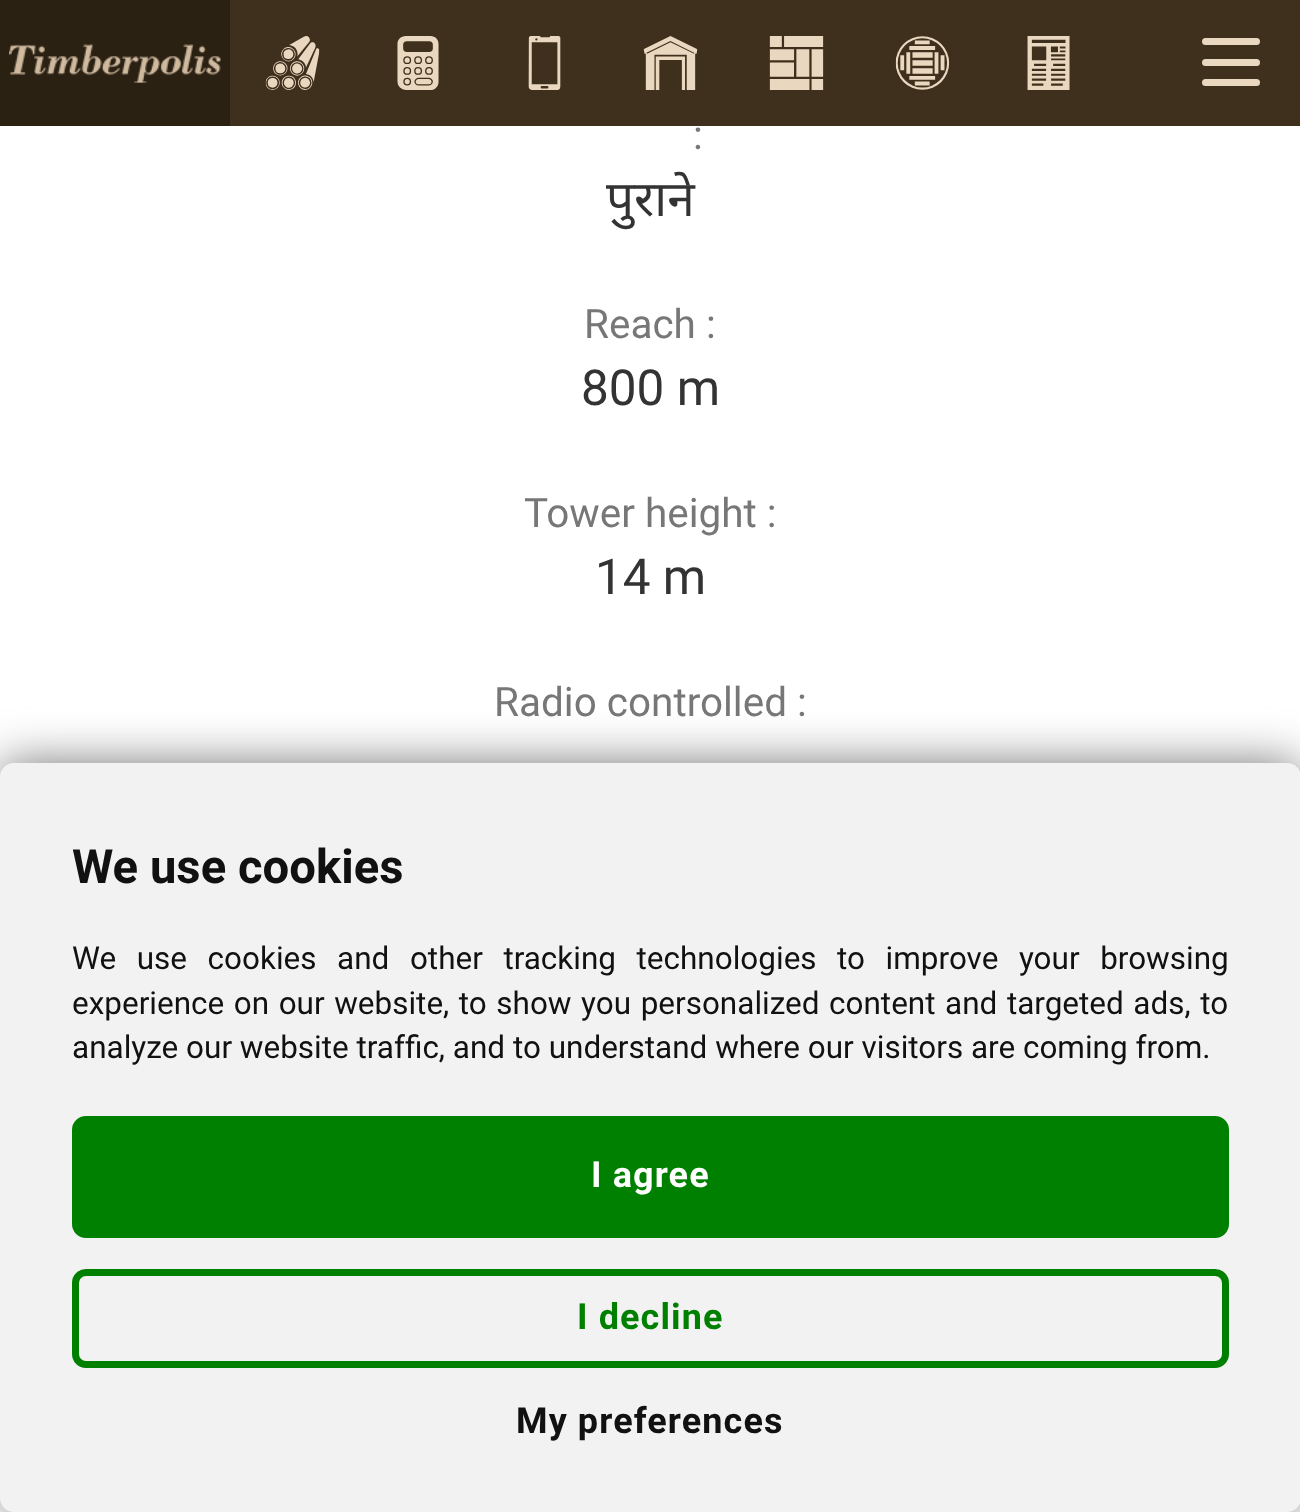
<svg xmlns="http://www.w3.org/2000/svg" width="1300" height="1512">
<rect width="100%" height="100%" fill="#fff"/>
<rect x="230" width="1070" height="126" fill="#3e301d"/>
<rect width="230" height="126" fill="#2b2113"/>
<image x="9" y="44" width="212" height="39" href="media/1.png"/>
<image x="265" y="36" width="55" height="54" href="media/2.png"/>
<image x="397" y="36" width="42" height="54" href="media/3.png"/>
<image x="528" y="36" width="33" height="54" href="media/4.png"/>
<image x="643" y="36" width="55" height="54" href="media/5.png"/>
<image x="769" y="36" width="55" height="54" href="media/6.png"/>
<image x="895" y="36" width="55" height="54" href="media/7.png"/>
<image x="1027" y="36" width="43" height="54" href="media/8.png"/>
<rect x="1202" y="38" width="58" height="7" rx="3.5" fill="#e9d7c0"/>
<rect x="1202" y="59" width="58" height="7" rx="3.5" fill="#e9d7c0"/>
<rect x="1202" y="79" width="58" height="7" rx="3.5" fill="#e9d7c0"/>
<text x="693" y="149" style="font-family:Roboto;font-size:40.5px;fill:#777">:</text>
<text x="606" y="216" style="font-family:Noto Sans;font-size:49.5px;fill:#333">पुराने</text>
<text x="584" y="338" style="font-family:Roboto;font-size:40.5px;fill:#777">Reach :</text>
<text x="581" y="405" style="font-family:Roboto;font-size:49.5px;fill:#333">800 m</text>
<text x="524" y="527" style="font-family:Roboto;font-size:40.5px;fill:#777">Tower height :</text>
<text x="595" y="594" style="font-family:Roboto;font-size:49.5px;fill:#333">14 m</text>
<text x="494" y="716" style="font-family:Roboto;font-size:40.5px;fill:#777">Radio controlled :</text>
<rect y="763" width="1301" height="749" rx="14" fill="#777" filter="blur(23.5px)"/>
<rect y="763" width="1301" height="749" rx="14" fill="#f2f2f2"/>
<text x="72" y="883" style="font-family:Roboto;font-size:47.25px;font-weight:bold;fill:#111">We use cookies</text>
<text x="72" y="969" word-spacing="12.75" style="font-family:Roboto;font-size:31.5px;fill:#111">We use cookies and other tracking technologies to improve your browsing</text>
<text x="72" y="1014" word-spacing="1.75" style="font-family:Roboto;font-size:31.5px;fill:#111">experience on our website, to show you personalized content and targeted ads, to</text>
<text x="72" y="1058" style="font-family:Roboto;font-size:31.5px;fill:#111">analyze our website traffic, and to understand where our visitors are coming from.</text>
<rect x="75.5" y="1119.5" width="1150" height="115" rx="10.5" fill="#008000" stroke="#008000" stroke-width="7"/>
<text x="591" y="1187" style="font-family:Roboto;font-size:36px;font-weight:bold;letter-spacing:1.1px;fill:#fff">I agree</text>
<rect x="75.5" y="1272.5" width="1150" height="92" rx="10.5" fill="none" stroke="#008000" stroke-width="7"/>
<text x="577" y="1329" style="font-family:Roboto;font-size:36px;font-weight:bold;letter-spacing:1.1px;fill:#008000">I decline</text>
<text x="516" y="1433" style="font-family:Roboto;font-size:36px;font-weight:bold;letter-spacing:1.1px;fill:#111">My preferences</text>
</svg>
